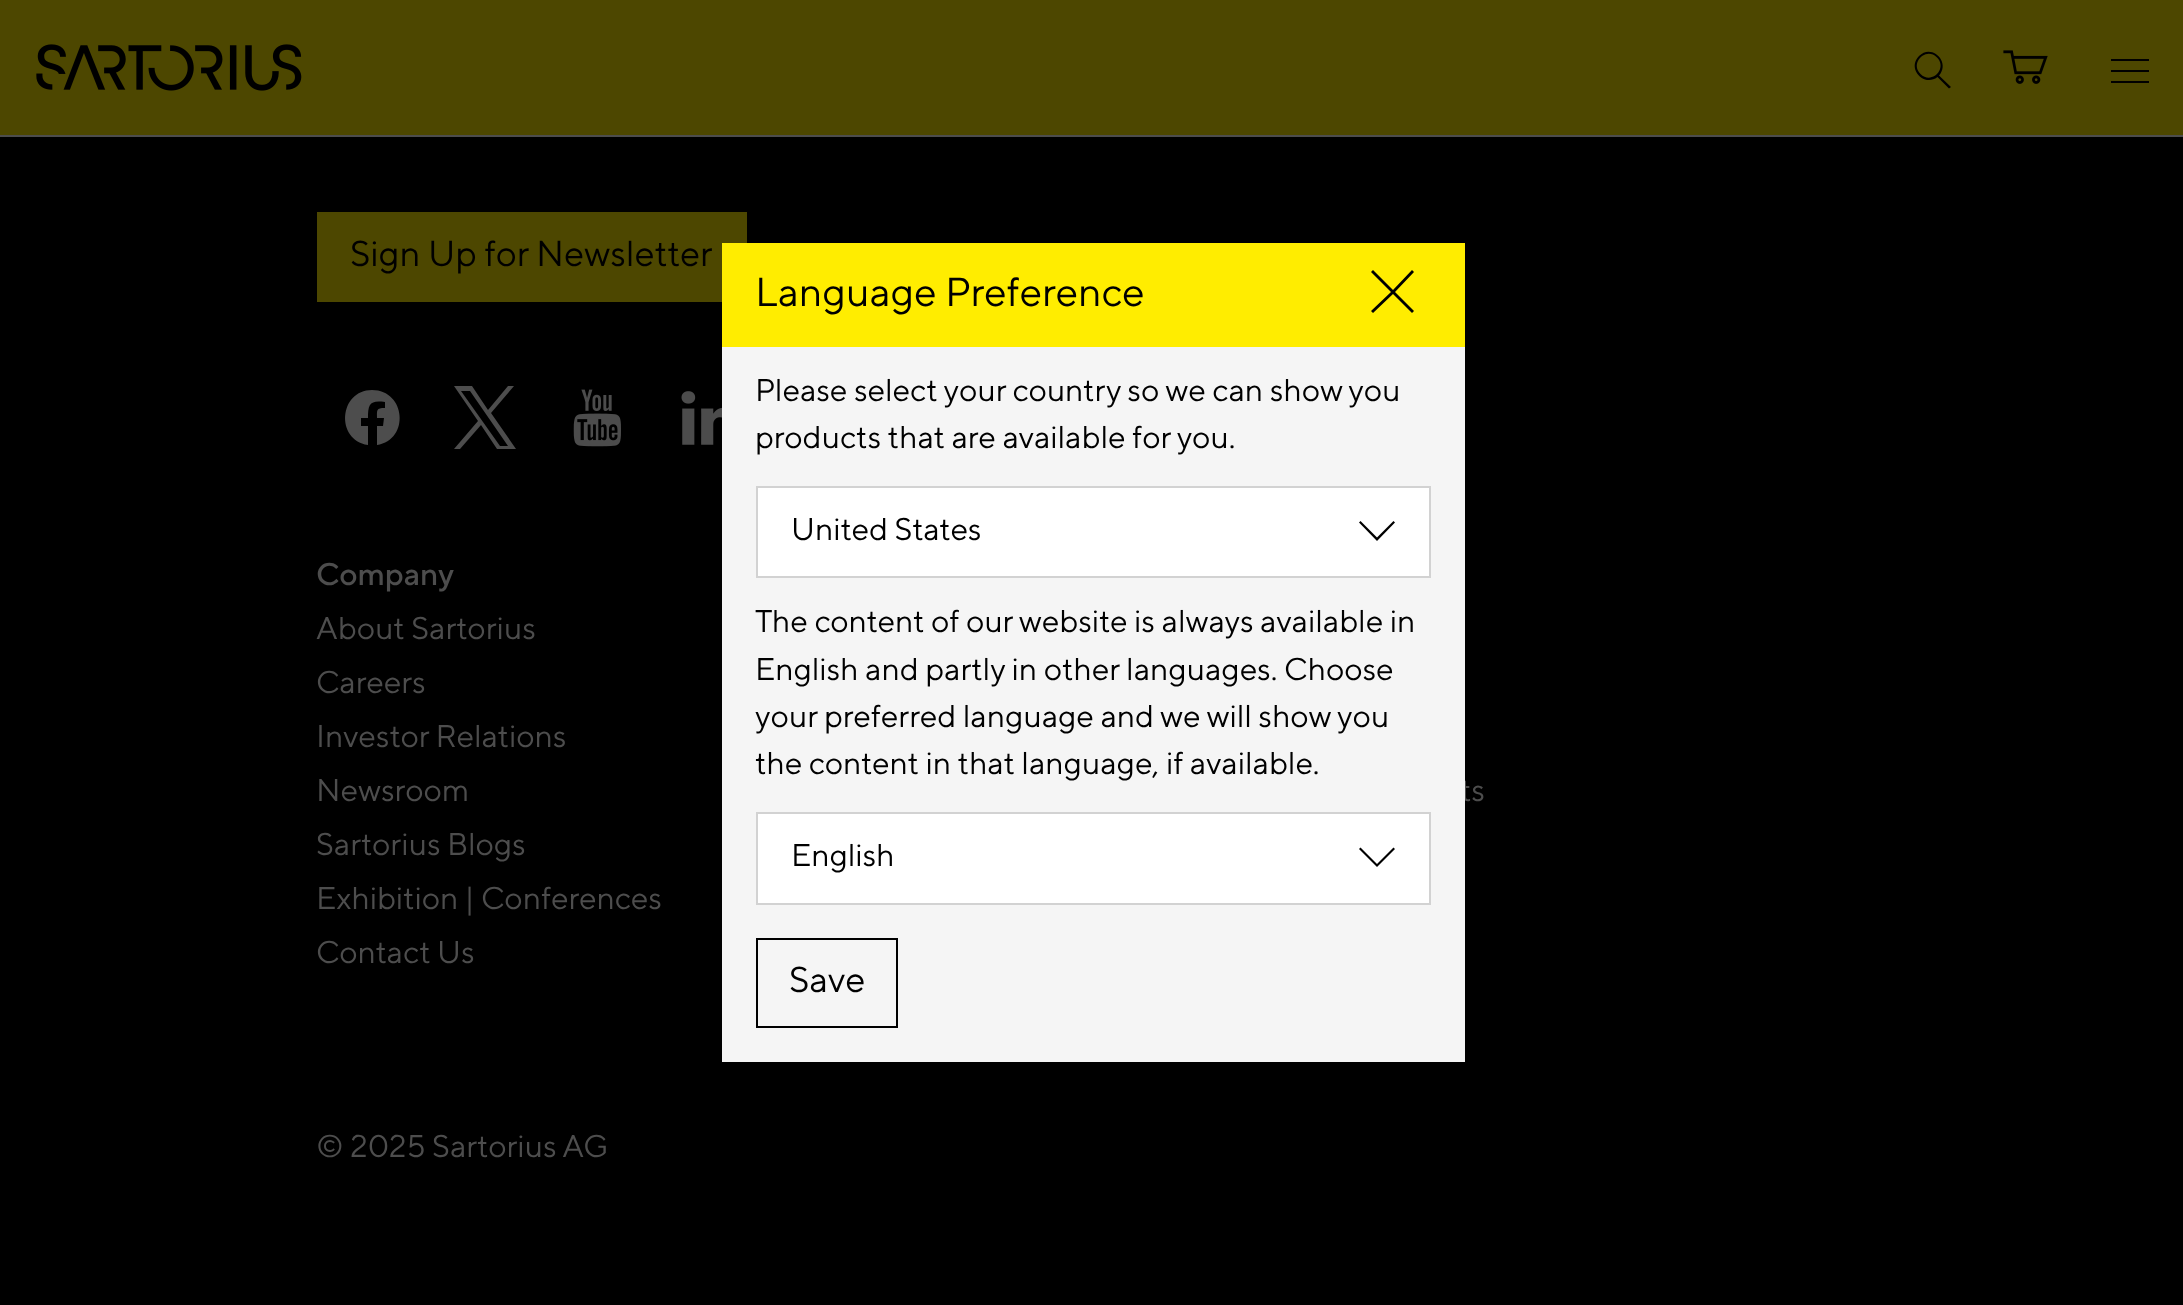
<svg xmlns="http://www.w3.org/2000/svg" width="2183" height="1305">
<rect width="100%" height="100%" fill="#000"/>
<rect width="2183" height="135" fill="#4d4700"/>
<image x="36" y="44" width="266" height="47" href="media/1.png"/>
<path d="M1951 87l-12-11.5c12-13.5-7.5-32.5-20-19.5c-12.5 12.5 5 31.5 18.5 21l11.5 11.5zm-30.5-13c-11-11 5.5-27.5 16.5-16.5c11 11-5.5 27.5-16.5 16.5z" fill="#000"/>
<rect x="-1" y="-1" width="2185" height="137" fill="none" stroke="#4d4d4d" stroke-width="2"/>
<image x="2003" y="50" width="45" height="34" href="media/2.png"/>
<rect x="2111" y="59" width="38" height="2" fill="#000"/>
<rect x="2111" y="70" width="38" height="2" fill="#000"/>
<rect x="2111" y="81" width="38" height="2" fill="#000"/>
<rect x="317" y="212" width="430" height="90" fill="#4d4700"/>
<text x="350" y="266" style="font-family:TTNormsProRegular;font-size:36px;fill:#000">Sign Up for Newsletter</text>
<path d="M372 390c-33 0-37 50-4 55v-19h-7v-8h7c0-14 2-18 17-16v6c-9 0-8 2-8 10h7l-1 8h-6v19c33-5 29-55-5-55z" fill="#4d4d4d"/>
<path d="M491 413l23-27h-6l-20 24l-16-24h-18l24 35l-24 28h6l21-24l16 24h19zm-8 9l-22-31h9l38 55h-8z" fill="#4d4d4d"/>
<image x="573" y="389" width="48" height="58" href="media/3.png"/>
<image x="681" y="391" width="41" height="54" href="media/4.png"/>
<text x="316" y="585" style="font-family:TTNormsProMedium;font-size:31.5px;fill:#4d4d4d">Company</text>
<text x="316" y="639" style="font-family:TTNormsProRegular;font-size:31.5px;fill:#4d4d4d">About Sartorius</text>
<text x="316" y="693" style="font-family:TTNormsProRegular;font-size:31.5px;fill:#4d4d4d">Careers</text>
<text x="316" y="747" style="font-family:TTNormsProRegular;font-size:31.5px;fill:#4d4d4d">Investor Relations</text>
<text x="316" y="801" style="font-family:TTNormsProRegular;font-size:31.5px;fill:#4d4d4d">Newsroom</text>
<text x="316" y="855" style="font-family:TTNormsProRegular;font-size:31.5px;fill:#4d4d4d">Sartorius Blogs</text>
<text x="316" y="909" style="font-family:TTNormsProRegular;font-size:31.5px;fill:#4d4d4d">Exhibition | Conferences</text>
<text x="316" y="963" style="font-family:TTNormsProRegular;font-size:31.5px;fill:#4d4d4d">Contact Us</text>
<text x="1460" y="801" style="font-family:TTNormsProRegular;font-size:31.5px;fill:#4d4d4d">ts</text>
<text x="316" y="1157" style="font-family:TTNormsProRegular;font-size:31.5px;fill:#4d4d4d">© 2025 Sartorius AG</text>
<rect x="722" y="347" width="743" height="715" fill="#f5f5f5"/>
<rect x="722" y="243" width="743" height="104" fill="#ffed00"/>
<text x="755" y="306" style="font-family:TTNormsProRegular;font-size:40.5px;fill:#000">Language Preference</text>
<path d="M1414 272l-2-2l-19 20l-20-20l-2 2l20 20l-20 19l2 2l20-19l19 19l2-2l-19-19z" fill="#000"/>
<text x="755" y="401" style="font-family:TTNormsProRegular;font-size:31.5px;fill:#000">Please select your country so we can show you</text>
<text x="755" y="448" style="font-family:TTNormsProRegular;font-size:31.5px;fill:#000">products that are available for you.</text>
<rect x="757" y="487" width="673" height="90" fill="#fff" stroke="#d2d2d2" stroke-width="2"/>
<text x="791" y="540" style="font-family:TTNormsProRegular;font-size:31.5px;fill:#000">United States</text>
<path d="M1377 541l-18-18.5l1.5-1.5l16.5 16.5l16.5-16.5l1.5 1.5z" fill="#000"/>
<text x="755" y="632" style="font-family:TTNormsProRegular;font-size:31.5px;fill:#000">The content of our website is always available in</text>
<text x="755" y="680" style="font-family:TTNormsProRegular;font-size:31.5px;fill:#000">English and partly in other languages. Choose</text>
<text x="755" y="727" style="font-family:TTNormsProRegular;font-size:31.5px;fill:#000">your preferred language and we will show you</text>
<text x="755" y="774" style="font-family:TTNormsProRegular;font-size:31.5px;fill:#000">the content in that language, if available.</text>
<rect x="757" y="813" width="673" height="91" fill="#fff" stroke="#d2d2d2" stroke-width="2"/>
<text x="791" y="866" style="font-family:TTNormsProRegular;font-size:31.5px;fill:#000">English</text>
<path d="M1377 867l-18-18l1.5-1.5l16.5 16.5l16.5-16.5l1.5 1.5z" fill="#000"/>
<rect x="757" y="939" width="140" height="88" fill="none" stroke="#000" stroke-width="2"/>
<text x="789" y="992" style="font-family:TTNormsProRegular;font-size:36px;fill:#000">Save</text>
</svg>
